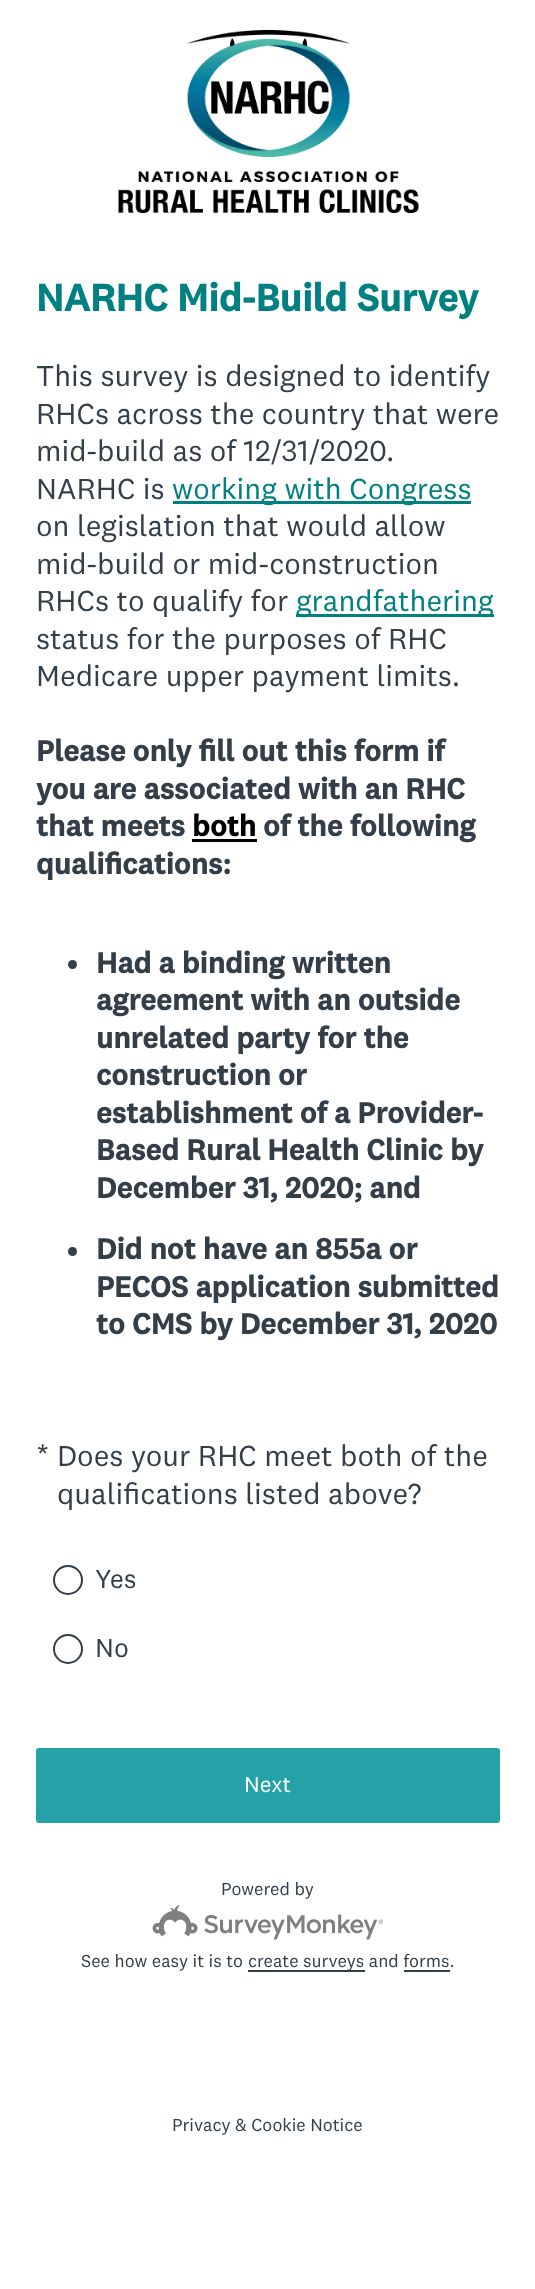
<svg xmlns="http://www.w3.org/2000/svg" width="535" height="2289">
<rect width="100%" height="100%" fill="#fff"/>
<image x="118" y="30" width="301" height="183" href="media/1.png"/>
<text x="36" y="311" style="font-family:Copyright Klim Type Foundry;font-size:39px;font-weight:bold;fill:#008080">NARHC Mid-Build Survey</text>
<text x="36" y="386" style="font-family:Copyright Klim Type Foundry;font-size:30px;fill:#333e48">This survey is designed to identify</text>
<text x="36" y="424" style="font-family:Copyright Klim Type Foundry;font-size:30px;fill:#333e48">RHCs across the country that were</text>
<text x="36" y="461" style="font-family:Copyright Klim Type Foundry;font-size:30px;fill:#333e48">mid-build as of 12/31/2020.</text>
<text x="36" y="499" style="font-family:Copyright Klim Type Foundry;font-size:30px;fill:#333e48">NARHC is</text>
<rect x="173" y="501" width="298" height="3" fill="#008080"/>
<text x="172" y="499" style="font-family:Copyright Klim Type Foundry;font-size:30px;fill:#008080">working with Congress</text>
<text x="36" y="536" style="font-family:Copyright Klim Type Foundry;font-size:30px;fill:#333e48">on legislation that would allow</text>
<text x="36" y="574" style="font-family:Copyright Klim Type Foundry;font-size:30px;fill:#333e48">mid-build or mid-construction</text>
<text x="36" y="611" style="font-family:Copyright Klim Type Foundry;font-size:30px;fill:#333e48">RHCs to qualify for</text>
<rect x="296" y="614" width="198" height="3" fill="#008080"/>
<text x="296" y="611" style="font-family:Copyright Klim Type Foundry;font-size:30px;fill:#008080">grandfathering</text>
<text x="36" y="649" style="font-family:Copyright Klim Type Foundry;font-size:30px;fill:#333e48">status for the purposes of RHC</text>
<text x="36" y="686" style="font-family:Copyright Klim Type Foundry;font-size:30px;fill:#333e48">Medicare upper payment limits.</text>
<text x="36" y="761" style="font-family:Copyright Klim Type Foundry;font-size:30px;font-weight:bold;fill:#333e48">Please only fill out this form if</text>
<text x="36" y="799" style="font-family:Copyright Klim Type Foundry;font-size:30px;font-weight:bold;fill:#333e48">you are associated with an RHC</text>
<text x="36" y="836" style="font-family:Copyright Klim Type Foundry;font-size:30px;font-weight:bold;fill:#333e48">that meets</text>
<text x="192" y="836" style="font-family:Copyright Klim Type Foundry;font-size:30px;font-weight:bold;fill:#000">both</text>
<rect x="192" y="839" width="65" height="3" fill="#000"/>
<text x="263" y="836" style="font-family:Copyright Klim Type Foundry;font-size:30px;font-weight:bold;fill:#333e48">of the following</text>
<text x="36" y="874" style="font-family:Copyright Klim Type Foundry;font-size:30px;font-weight:bold;fill:#333e48">qualifications:</text>
<circle cx="72.5" cy="964.5" r="4.5" fill="#333e48"/>
<text x="96" y="973" style="font-family:Copyright Klim Type Foundry;font-size:30px;font-weight:bold;fill:#333e48">Had a binding written</text>
<text x="96" y="1010" style="font-family:Copyright Klim Type Foundry;font-size:30px;font-weight:bold;fill:#333e48">agreement with an outside</text>
<text x="96" y="1048" style="font-family:Copyright Klim Type Foundry;font-size:30px;font-weight:bold;fill:#333e48">unrelated party for the</text>
<text x="96" y="1085" style="font-family:Copyright Klim Type Foundry;font-size:30px;font-weight:bold;fill:#333e48">construction or</text>
<text x="96" y="1123" style="font-family:Copyright Klim Type Foundry;font-size:30px;font-weight:bold;fill:#333e48">establishment of a Provider-</text>
<text x="96" y="1160" style="font-family:Copyright Klim Type Foundry;font-size:30px;font-weight:bold;fill:#333e48">Based Rural Health Clinic by</text>
<text x="96" y="1198" style="font-family:Copyright Klim Type Foundry;font-size:30px;font-weight:bold;fill:#333e48">December 31, 2020; and</text>
<circle cx="72.5" cy="1251.5" r="4.5" fill="#333e48"/>
<text x="96" y="1259" style="font-family:Copyright Klim Type Foundry;font-size:30px;font-weight:bold;fill:#333e48">Did not have an 855a or</text>
<text x="96" y="1297" style="font-family:Copyright Klim Type Foundry;font-size:30px;font-weight:bold;fill:#333e48">PECOS application submitted</text>
<text x="96" y="1334" style="font-family:Copyright Klim Type Foundry;font-size:30px;font-weight:bold;fill:#333e48">to CMS by December 31, 2020</text>
<text x="36" y="1466" style="font-family:Copyright Klim Type Foundry;font-size:30px;fill:#333e48">* Does your RHC meet both of the</text>
<text x="57" y="1504" style="font-family:Copyright Klim Type Foundry;font-size:30px;fill:#333e48">qualifications listed above?</text>
<circle cx="68" cy="1580" r="14" fill="none" stroke="#333e48" stroke-width="2"/>
<text x="95" y="1588" style="font-family:Copyright Klim Type Foundry;font-size:27px;fill:#333e48">Yes</text>
<circle cx="68" cy="1649" r="14" fill="none" stroke="#333e48" stroke-width="2"/>
<text x="95" y="1657" style="font-family:Copyright Klim Type Foundry;font-size:27px;fill:#333e48">No</text>
<rect x="36" y="1748" width="464" height="75" rx="3" fill="#24a2a8"/>
<text x="244" y="1792" style="font-family:Copyright Klim Type Foundry;font-size:22.5px;fill:#fff">Next</text>
<text x="221" y="1895" style="font-family:Copyright Klim Type Foundry;font-size:18px;fill:#333e48">Powered by</text>
<image x="152" y="1905" width="231" height="35" href="media/2.png"/>
<text x="81" y="1967" style="font-family:Copyright Klim Type Foundry;font-size:18px;fill:#333e48">See how easy it is to</text>
<rect x="248" y="1970" width="117" height="2" fill="#333e48"/>
<text x="248" y="1967" style="font-family:Copyright Klim Type Foundry;font-size:18px;fill:#333e48">create surveys and forms.</text>
<rect x="404" y="1970" width="46" height="2" fill="#333e48"/>
<text x="172" y="2131" style="font-family:Copyright Klim Type Foundry;font-size:18px;fill:#333e48">Privacy &amp; Cookie Notice</text>
</svg>
